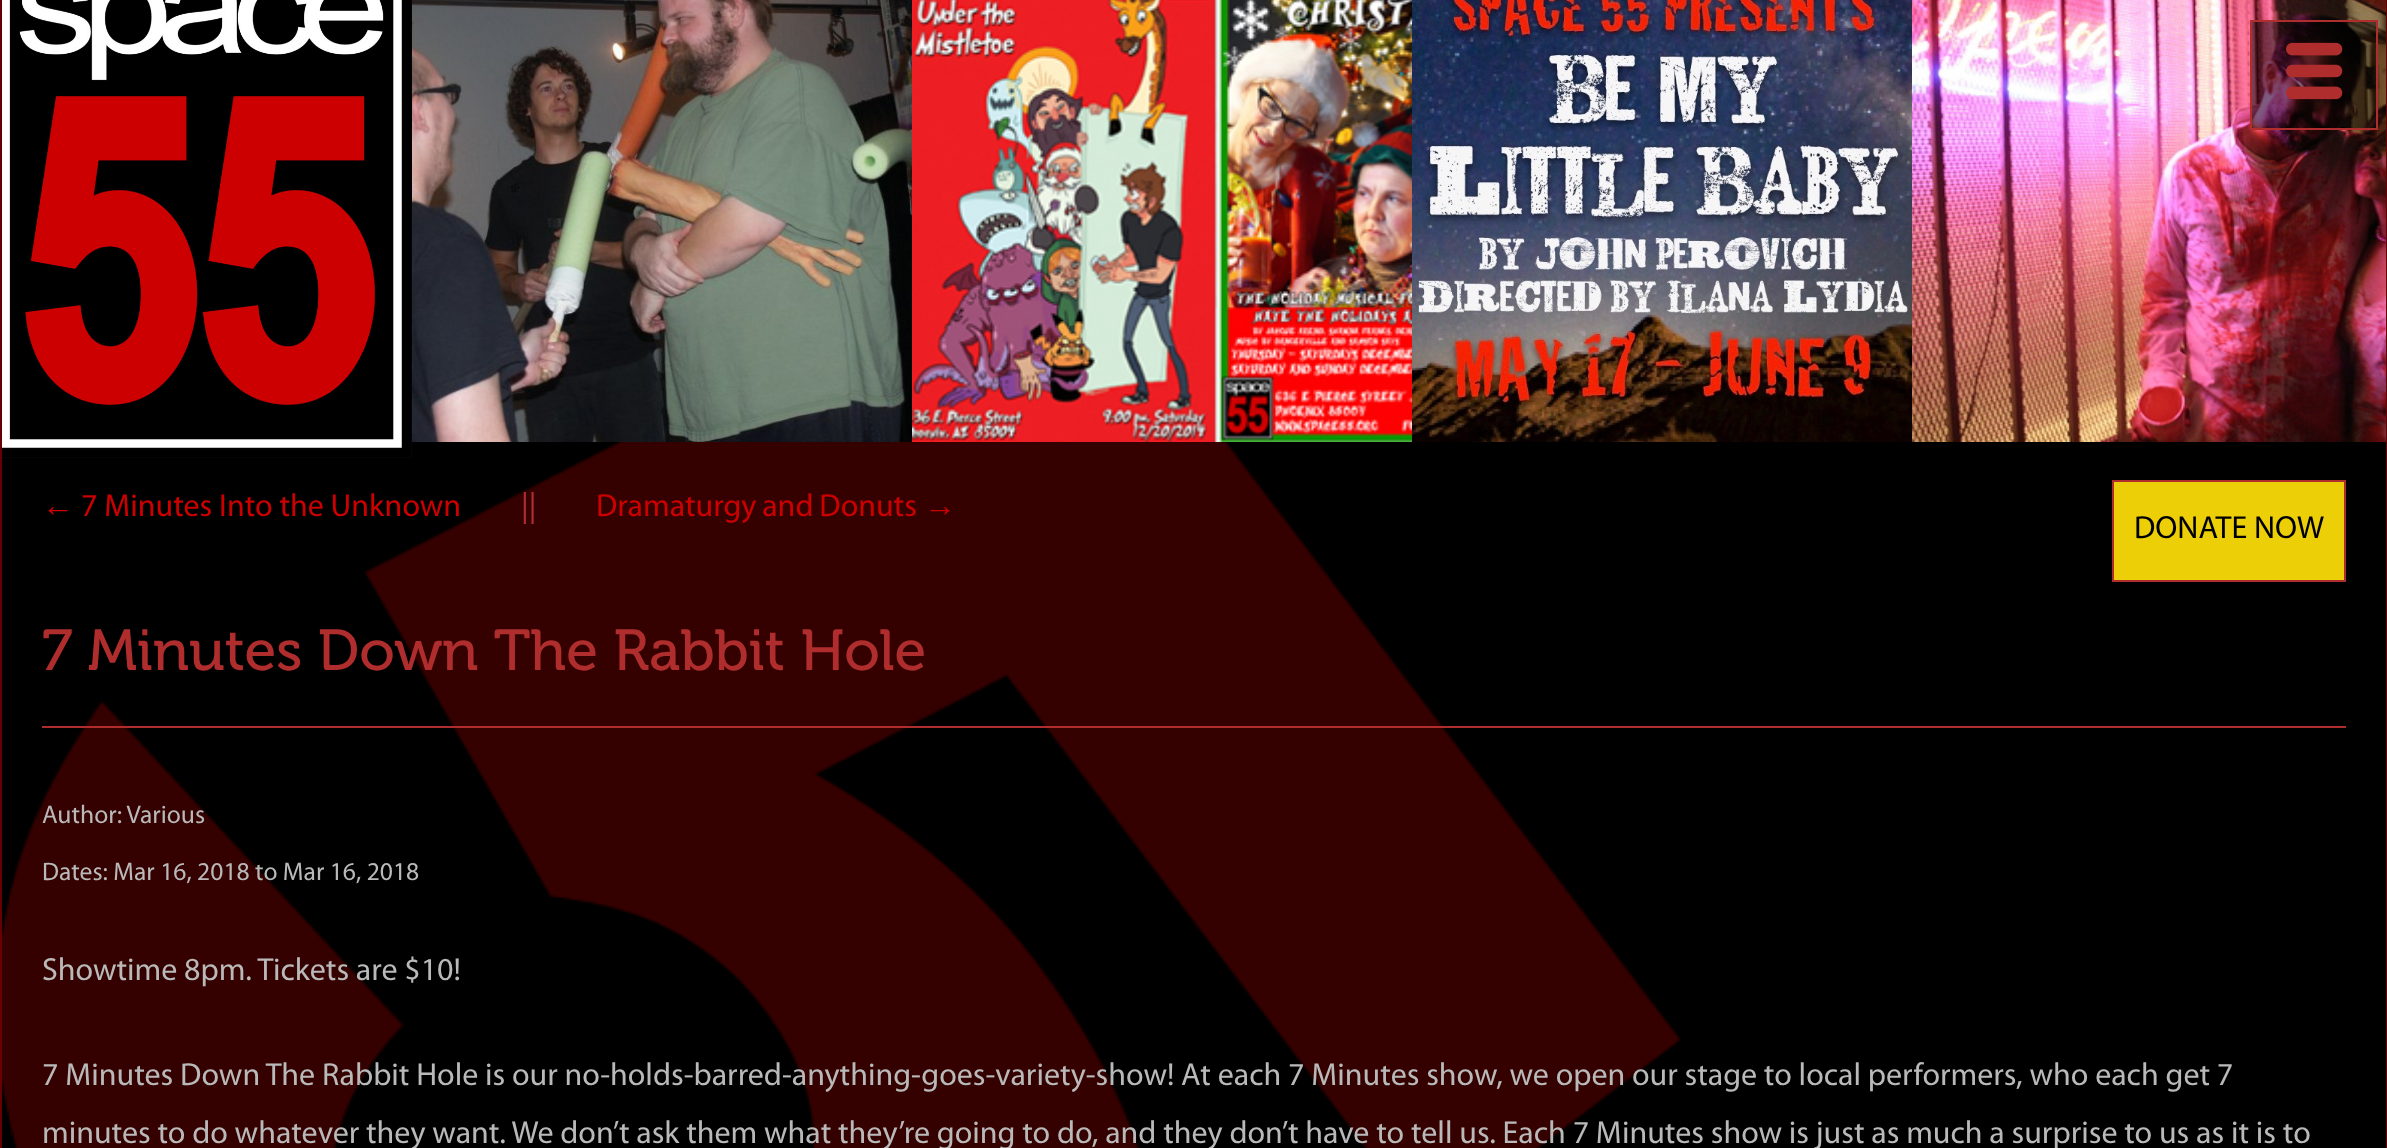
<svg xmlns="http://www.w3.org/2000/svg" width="2387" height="1148">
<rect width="100%" height="100%" fill="#fff"/>
<rect x="1" y="-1" width="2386" height="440" fill="none" stroke="#670000" stroke-width="2"/>
<image x="1912" y="0" width="474" height="442" href="media/6.png"/>
<rect x="2251" y="21" width="126" height="108" fill="#00000080" stroke="#af2d2d" stroke-width="2"/>
<image x="2286" y="42" width="57" height="58" href="media/1.png"/>
<image x="2" y="442" width="1679" height="706" href="media/7.png"/>
<image x="2" y="0" width="410" height="458" href="media/2.png"/>
<image x="412" y="0" width="500" height="442" href="media/3.png"/>
<image x="912" y="0" width="500" height="442" href="media/4.png"/>
<image x="1412" y="0" width="500" height="442" href="media/5.png"/>
<rect x="1681" y="442" width="705" height="706" fill="#000"/>
<rect x="2386" y="440" width="1" height="708" fill="#670000"/>
<rect y="440" width="2" height="708" fill="#670000"/>
<text x="42" y="516" style="font-family:Liberation Sans;font-size:32px;fill:#c00">←</text>
<text x="81" y="516" style="font-family:Myriad;font-size:32px;fill:#c00">7 Minutes Into the Unknown</text>
<text x="521" y="516" style="font-family:Myriad;font-size:32px;fill:#af2d2d">||</text>
<text x="596" y="516" word-spacing="-1" style="font-family:Myriad;font-size:32px;fill:#c00">Dramaturgy and Donuts</text>
<text x="924" y="516" style="font-family:Liberation Sans;font-size:32px;fill:#c00">→</text>
<rect x="2113" y="481" width="232" height="100" fill="#eccf07" stroke="#af2d2d" stroke-width="2"/>
<text x="2134" y="538" style="font-family:Myriad;font-size:32px;fill:#000">DONATE NOW</text>
<rect x="42" y="726" width="2304" height="2" fill="#af2d2d"/>
<text x="42" y="670" style="font-family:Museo;font-size:57.6px;fill:#af2d2d">7 Minutes Down The Rabbit Hole</text>
<text x="42" y="823" style="font-family:Myriad;font-size:25.6px;fill:#b9b9b9">Author: Various</text>
<text x="42" y="880" style="font-family:Myriad;font-size:25.6px;fill:#b9b9b9">Dates: Mar 16, 2018 to Mar 16, 2018</text>
<text x="42" y="980" style="font-family:Myriad;font-size:32px;fill:#b9b9b9">Showtime 8pm. Tickets are $10!</text>
<text x="42" y="1085" style="font-family:Myriad;font-size:32px;fill:#b9b9b9">7 Minutes Down The Rabbit Hole is our no-holds-barred-anything-goes-variety-show! At each 7 Minutes show, we open our stage to local performers, who each get 7</text>
<text x="42" y="1143" style="font-family:Myriad;font-size:32px;fill:#b9b9b9">minutes to do whatever they want. We don’t ask them what they’re going to do, and they don’t have to tell us. Each 7 Minutes show is just as much a surprise to us as it is to</text>
</svg>
